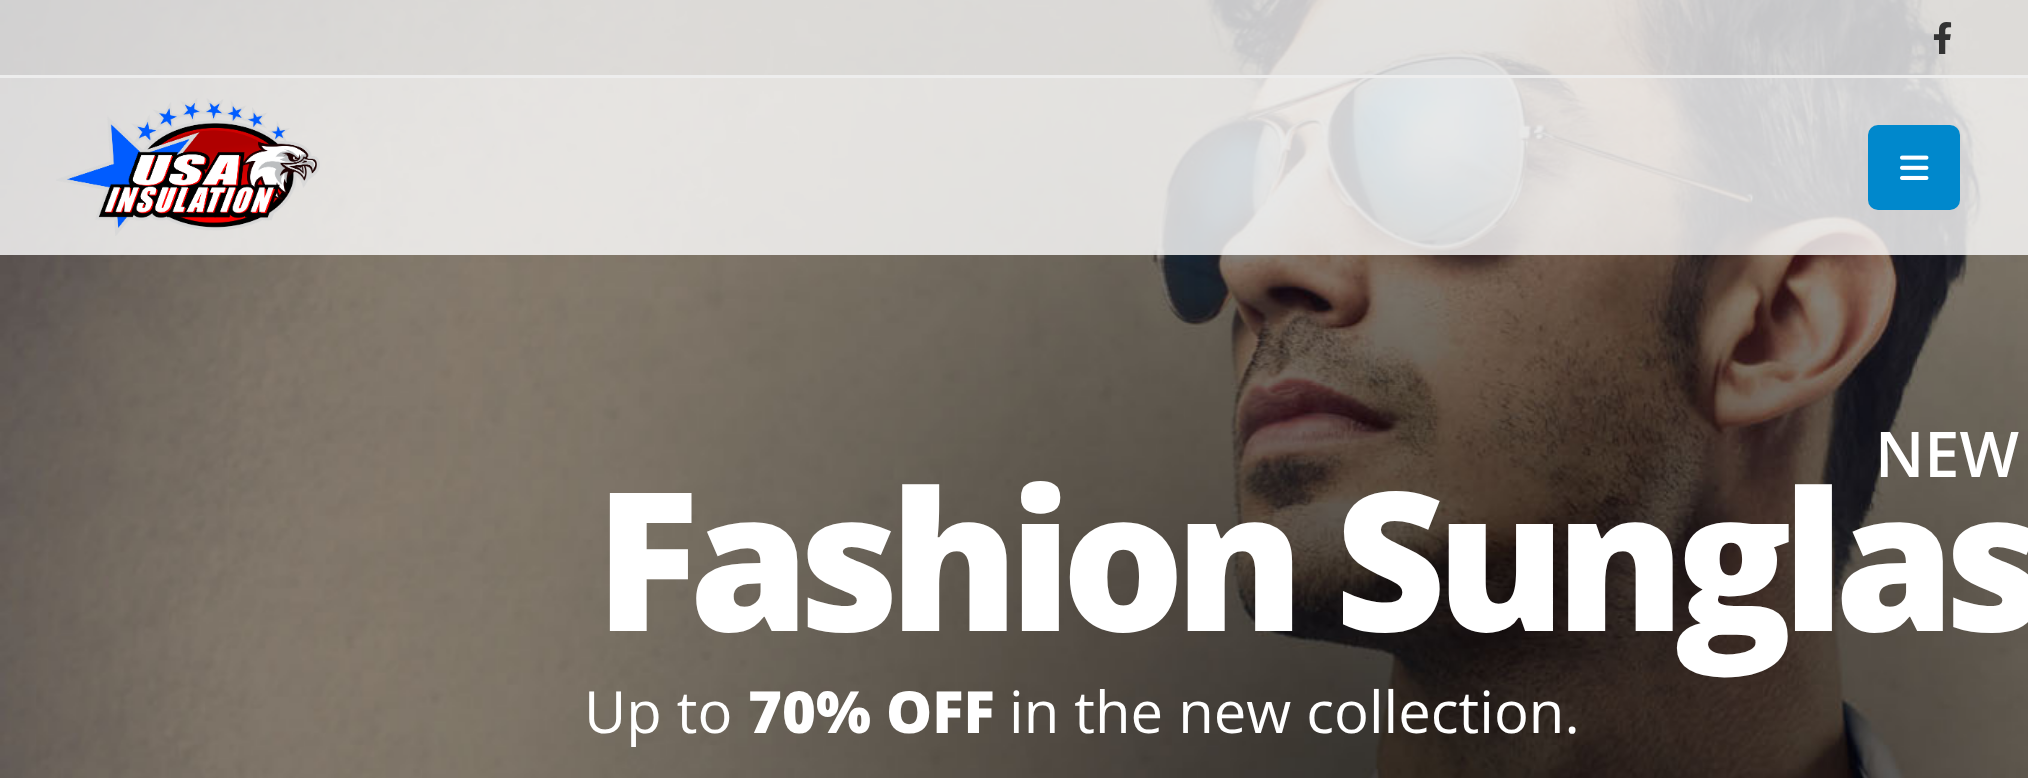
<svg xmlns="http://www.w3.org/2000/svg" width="2028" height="778">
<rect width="100%" height="100%" fill="#fff"/>
<image x="0" y="0" width="2028" height="778" href="media/4.png"/>
<rect width="2028" height="75" fill="#f4f4f4cc"/>
<rect y="75" width="2028" height="3" fill="#ededed"/>
<image x="1933" y="22" width="19" height="32" href="media/1.png"/>
<rect y="78" width="2028" height="177" fill="#ffffffcc"/>
<image x="56" y="98" width="264" height="138" href="media/2.png"/>
<rect x="1868" y="125" width="92" height="85" rx="10" fill="#08c"/>
<image x="1900" y="155" width="29" height="25" href="media/3.png"/>
<text x="1875" y="477" style="font-family:Open Sans;font-size:63px;font-weight:600;fill:#fff">NEW</text>
<text x="595" y="631" style="font-family:Open Sans;font-size:193.25px;font-weight:800;letter-spacing:-10px;fill:#fff">Fashion Sunglas</text>
<text x="584" y="733" style="font-family:Open Sans;font-size:58px;fill:#fff">Up to</text>
<text x="748" y="733" style="font-family:Open Sans;font-size:58px;font-weight:800;fill:#fff">70% OFF</text>
<text x="1009" y="733" style="font-family:Open Sans;font-size:58px;fill:#fff">in the new collection.</text>
</svg>
